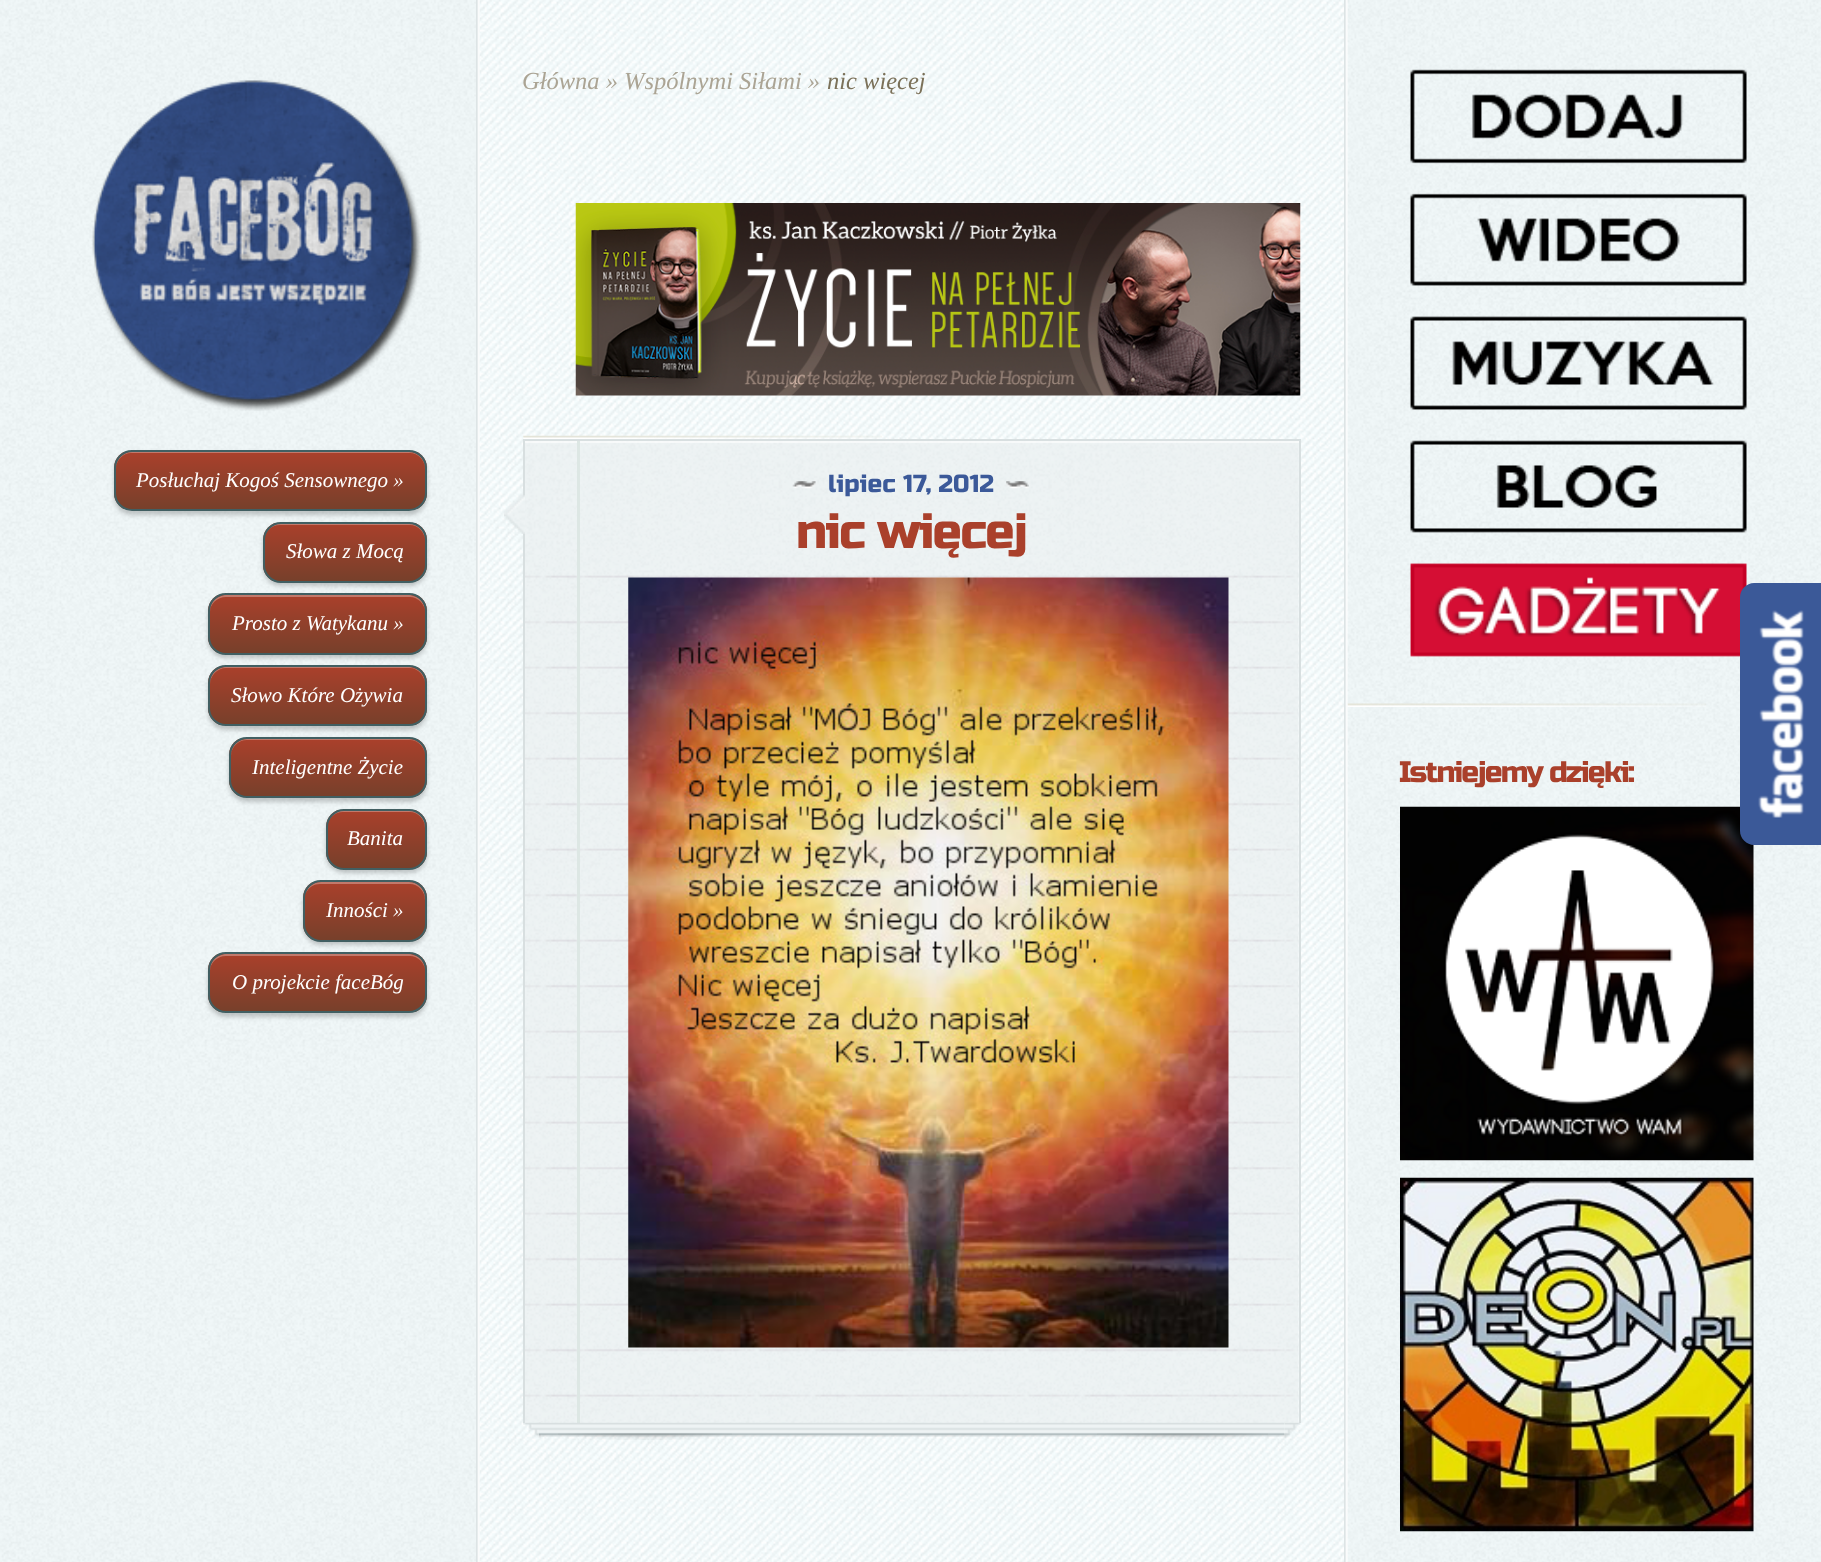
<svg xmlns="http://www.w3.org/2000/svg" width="1821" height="1562">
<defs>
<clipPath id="clip1"><rect x="114" y="450" width="313" height="61" rx="18"/></clipPath>
<linearGradient id="g1" gradientUnits="userSpaceOnUse" x1="270" y1="452" x2="270" y2="509"><stop offset="0" stop-color="#aa402b"/><stop offset="1" stop-color="#77402b"/></linearGradient>
<clipPath id="clip2"><rect x="263" y="522" width="164" height="61" rx="18"/></clipPath>
<linearGradient id="g2" gradientUnits="userSpaceOnUse" x1="345" y1="523" x2="345" y2="581"><stop offset="0" stop-color="#aa402b"/><stop offset="1" stop-color="#77402b"/></linearGradient>
<clipPath id="clip3"><rect x="208" y="593" width="219" height="62" rx="18"/></clipPath>
<linearGradient id="g3" gradientUnits="userSpaceOnUse" x1="318" y1="595" x2="318" y2="653"><stop offset="0" stop-color="#aa402b"/><stop offset="1" stop-color="#77402b"/></linearGradient>
<clipPath id="clip4"><rect x="208" y="665" width="219" height="61" rx="18"/></clipPath>
<linearGradient id="g4" gradientUnits="userSpaceOnUse" x1="318" y1="667" x2="318" y2="725"><stop offset="0" stop-color="#aa402b"/><stop offset="1" stop-color="#77402b"/></linearGradient>
<clipPath id="clip5"><rect x="229" y="737" width="198" height="61" rx="18"/></clipPath>
<linearGradient id="g5" gradientUnits="userSpaceOnUse" x1="328" y1="739" x2="328" y2="796"><stop offset="0" stop-color="#aa402b"/><stop offset="1" stop-color="#77402b"/></linearGradient>
<clipPath id="clip6"><rect x="326" y="809" width="101" height="61" rx="18"/></clipPath>
<linearGradient id="g6" gradientUnits="userSpaceOnUse" x1="376" y1="810" x2="376" y2="868"><stop offset="0" stop-color="#aa402b"/><stop offset="1" stop-color="#77402b"/></linearGradient>
<clipPath id="clip7"><rect x="303" y="880" width="124" height="62" rx="18"/></clipPath>
<linearGradient id="g7" gradientUnits="userSpaceOnUse" x1="365" y1="882" x2="365" y2="940"><stop offset="0" stop-color="#aa402b"/><stop offset="1" stop-color="#77402b"/></linearGradient>
<clipPath id="clip8"><rect x="208" y="952" width="219" height="61" rx="18"/></clipPath>
<linearGradient id="g8" gradientUnits="userSpaceOnUse" x1="318" y1="954" x2="318" y2="1012"><stop offset="0" stop-color="#aa402b"/><stop offset="1" stop-color="#77402b"/></linearGradient>
</defs>
<rect width="100%" height="100%" fill="#fff"/>
<image x="0" y="0" width="1821" height="1562" href="media/1.png"/>
<image x="479" y="0" width="865" height="1562" href="media/2.png"/>
<image x="476" y="0" width="4" height="1562" href="media/3.png"/>
<text x="522" y="89" style="font-family:Liberation Serif;font-size:24.5px;font-style:italic;fill:#aba494">Główna » Wspólnymi Siłami »</text>
<text x="827" y="89" style="font-family:Liberation Serif;font-size:24.5px;font-style:italic;fill:#7b7159">nic więcej</text>
<image x="523" y="435" width="359" height="4" href="media/4.png"/>
<image x="575" y="203" width="726" height="193" href="media/5.png"/>
<rect x="523" y="439" width="777" height="2" fill="#d8dfe0"/>
<rect x="523" y="439" width="2" height="984" fill="#d8dfe0"/>
<image x="504" y="495" width="21" height="39" href="media/6.png"/>
<rect x="1299" y="439" width="2" height="984" fill="#d8dfe0"/>
<image x="525" y="441" width="774" height="982" href="media/7.png"/>
<image x="525" y="441" width="774" height="114" href="media/8.png"/>
<rect x="525" y="441" width="774" height="2" fill="#ffffff99"/>
<rect x="577" y="441" width="3" height="982" fill="#dde7e4"/>
<image x="792" y="481" width="24" height="8" href="media/9.png"/>
<text x="828" y="492" style="font-family:Russo One;font-size:24.5px;fill:#3b5999">lipiec 17, 2012</text>
<image x="1006" y="481" width="23" height="8" href="media/10.png"/>
<text x="796" y="548" style="font-family:Russo One;font-size:49px;letter-spacing:-1.75px;fill:#aa402b">nic więcej</text>
<image x="628" y="577" width="601" height="771" href="media/11.png"/>
<image x="523" y="1422" width="18" height="16" href="media/12.png"/>
<image x="1284" y="1422" width="17" height="16" href="media/13.png"/>
<image x="539" y="1422" width="746" height="15" href="media/14.png"/>
<image x="558" y="1433" width="174" height="7" href="media/15.png"/>
<image x="1097" y="1433" width="171" height="7" href="media/16.png"/>
<image x="1347" y="703" width="359" height="4" href="media/19.png"/>
<image x="1344" y="0" width="4" height="1562" href="media/17.png"/>
<image x="92" y="80" width="330" height="331" href="media/18.png"/>
<rect x="114" y="453" width="313" height="62" rx="18" fill="#00000033" filter="blur(2px)"/>
<g clip-path="url(#clip1)">
<rect x="114" y="452" width="313" height="57" fill="url(#g1)"/>
</g>
<path d="M131 453h279c8 0 15 7 15 16v-1c0-9-7-16-16-16h-277c-9 0-16 7-16 16v1c0-9 7-16 15-16z" fill="#ffffff4d"/>
<rect x="115" y="451" width="311" height="59" rx="17" fill="none" stroke="#415f62" stroke-width="2"/>
<text x="136" y="487" style="font-family:Liberation Serif;font-size:21px;font-style:italic;fill:#fff">Posłuchaj Kogoś Sensownego »</text>
<rect x="263" y="525" width="164" height="61" rx="18" fill="#00000033" filter="blur(2px)"/>
<g clip-path="url(#clip2)">
<rect x="263" y="523" width="164" height="58" fill="url(#g2)"/>
</g>
<path d="M280 525h130c8 0 15 7 15 16c0-22-21-18-37-18h-86c-17 0-38-4-38 18c0-9 7-16 16-16z" fill="#ffffff4d"/>
<rect x="264" y="523" width="162" height="59" rx="17" fill="none" stroke="#415f62" stroke-width="2"/>
<text x="286" y="558" style="font-family:Liberation Serif;font-size:21px;font-style:italic;fill:#fff">Słowa z Mocą</text>
<rect x="208" y="597" width="219" height="61" rx="18" fill="#00000033" filter="blur(2px)"/>
<g clip-path="url(#clip3)">
<rect x="208" y="595" width="219" height="58" fill="url(#g3)"/>
</g>
<path d="M226 597h184c8 0 15 7 15 15c0-24-33-17-47-17h-122c-13 0-46-7-46 17c0-8 7-15 16-15z" fill="#ffffff4d"/>
<rect x="209" y="594" width="217" height="60" rx="17" fill="none" stroke="#415f62" stroke-width="2"/>
<text x="232" y="630" style="font-family:Liberation Serif;font-size:21px;font-style:italic;fill:#fff">Prosto z Watykanu »</text>
<rect x="208" y="669" width="219" height="61" rx="18" fill="#00000033" filter="blur(2px)"/>
<g clip-path="url(#clip4)">
<rect x="208" y="667" width="219" height="58" fill="url(#g4)"/>
</g>
<path d="M226 668h184c8 0 15 8 15 16c0-24-33-17-47-17h-122c-13 0-46-7-46 17c0-8 7-16 16-16z" fill="#ffffff4d"/>
<rect x="209" y="666" width="217" height="59" rx="17" fill="none" stroke="#415f62" stroke-width="2"/>
<text x="231" y="702" style="font-family:Liberation Serif;font-size:21px;font-style:italic;fill:#fff">Słowo Które Ożywia</text>
<rect x="229" y="740" width="198" height="62" rx="18" fill="#00000033" filter="blur(2px)"/>
<g clip-path="url(#clip5)">
<rect x="229" y="739" width="198" height="57" fill="url(#g5)"/>
</g>
<path d="M247 740h163c8 0 15 7 15 16c0-23-29-17-43-17h-108c-14 0-43-6-43 17c0-9 7-16 16-16z" fill="#ffffff4d"/>
<rect x="230" y="738" width="196" height="59" rx="17" fill="none" stroke="#415f62" stroke-width="2"/>
<text x="252" y="774" style="font-family:Liberation Serif;font-size:21px;font-style:italic;fill:#fff">Inteligentne Życie</text>
<rect x="326" y="812" width="101" height="61" rx="18" fill="#00000033" filter="blur(2px)"/>
<g clip-path="url(#clip6)">
<rect x="326" y="810" width="101" height="58" fill="url(#g6)"/>
</g>
<path d="M343 812h67c8 0 15 7 15 16v-2c0-9-7-16-16-16h-66c-9 0-16 7-16 16v2c0-9 7-16 16-16z" fill="#ffffff4d"/>
<rect x="327" y="810" width="99" height="59" rx="17" fill="none" stroke="#415f62" stroke-width="2"/>
<text x="347" y="845" style="font-family:Liberation Serif;font-size:21px;font-style:italic;fill:#fff">Banita</text>
<rect x="303" y="884" width="124" height="61" rx="18" fill="#00000033" filter="blur(2px)"/>
<g clip-path="url(#clip7)">
<rect x="303" y="882" width="124" height="58" fill="url(#g7)"/>
</g>
<path d="M320 884h90c8 0 15 7 15 16v-2c0-9-7-16-16-16h-88c-7 0-13 4-15 11c3-6 8-9 14-9z" fill="#ffffff4d"/>
<rect x="304" y="881" width="122" height="60" rx="17" fill="none" stroke="#415f62" stroke-width="2"/>
<text x="326" y="917" style="font-family:Liberation Serif;font-size:21px;font-style:italic;fill:#fff">Inności »</text>
<rect x="208" y="956" width="219" height="61" rx="18" fill="#00000033" filter="blur(2px)"/>
<g clip-path="url(#clip8)">
<rect x="208" y="954" width="219" height="58" fill="url(#g8)"/>
</g>
<path d="M226 956h184c8 0 15 7 15 15c0-24-33-17-47-17h-122c-13 0-46-7-46 17c0-8 7-15 16-15z" fill="#ffffff4d"/>
<rect x="209" y="953" width="217" height="59" rx="17" fill="none" stroke="#415f62" stroke-width="2"/>
<text x="232" y="989" style="font-family:Liberation Serif;font-size:21px;font-style:italic;fill:#fff">O projekcie faceBóg</text>
<image x="1410" y="69" width="337" height="95" href="media/20.png"/>
<image x="1410" y="193" width="337" height="93" href="media/21.png"/>
<image x="1410" y="316" width="337" height="94" href="media/22.png"/>
<image x="1410" y="440" width="337" height="93" href="media/23.png"/>
<image x="1410" y="563" width="337" height="94" href="media/24.png"/>
<text x="1399" y="782" style="font-family:Russo One;font-size:29.75px;letter-spacing:-1.75px;fill:#aa402b">Istniejemy dzięki:</text>
<image x="1400" y="806" width="354" height="355" href="media/25.png"/>
<image x="1400" y="1177" width="354" height="355" href="media/26.png"/>
<path d="M1754 583h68v262h-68c-7.5 0-14-6.5-14-14v-234c0-7.5 6.5-14 14-14z" fill="#3b5998"/>
<image x="1758" y="610" width="46" height="208" href="media/27.png"/>
</svg>
